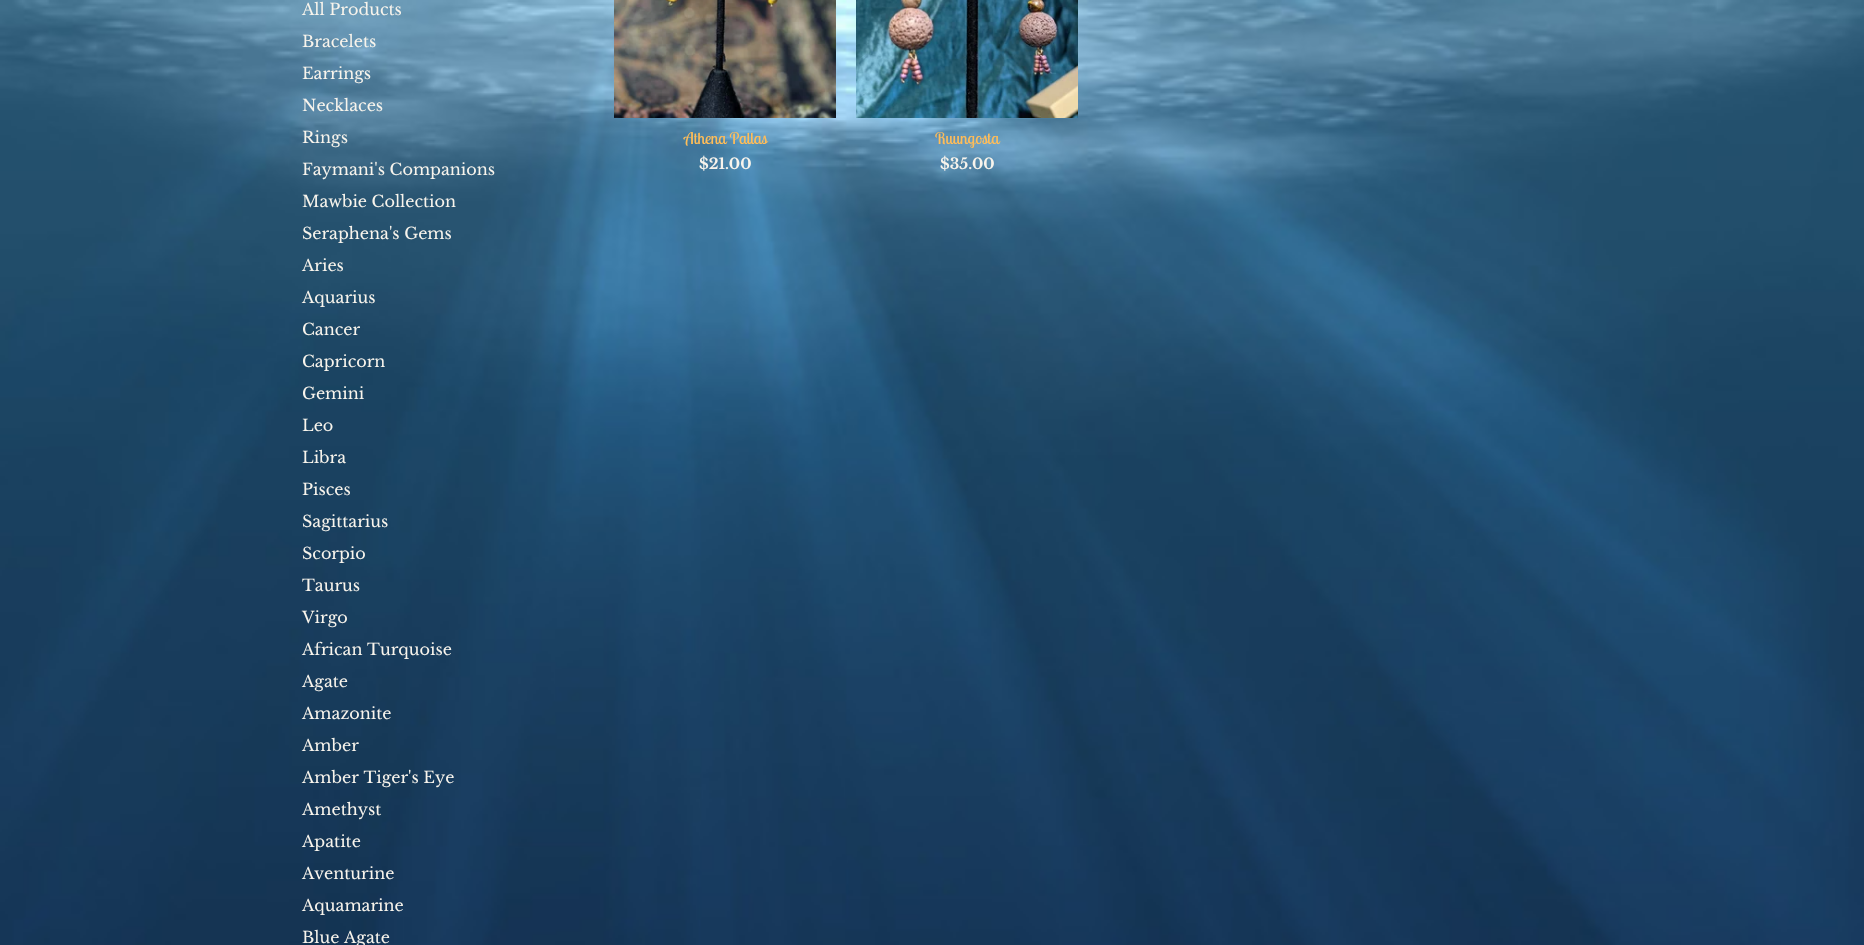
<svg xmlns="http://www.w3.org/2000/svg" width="1864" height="945">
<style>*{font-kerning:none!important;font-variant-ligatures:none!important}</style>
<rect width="100%" height="100%" fill="#fff"/>
<image x="0" y="0" width="1864" height="945" href="media/1.png"/>
<text x="302" y="15" style="font-family:Libre Baskerville;font-size:16px;fill:#f8f4ec">All Products</text>
<text x="302" y="47" style="font-family:Libre Baskerville;font-size:16px;fill:#f8f4ec">Bracelets</text>
<text x="302" y="79" style="font-family:Libre Baskerville;font-size:16px;fill:#f8f4ec">Earrings</text>
<text x="302" y="111" style="font-family:Libre Baskerville;font-size:16px;fill:#f8f4ec">Necklaces</text>
<text x="302" y="143" style="font-family:Libre Baskerville;font-size:16px;fill:#f8f4ec">Rings</text>
<text x="302" y="175" style="font-family:Libre Baskerville;font-size:16px;fill:#f8f4ec">Faymani's Companions</text>
<text x="302" y="207" style="font-family:Libre Baskerville;font-size:16px;fill:#f8f4ec">Mawbie Collection</text>
<text x="302" y="239" style="font-family:Libre Baskerville;font-size:16px;fill:#f8f4ec">Seraphena's Gems</text>
<text x="302" y="271" style="font-family:Libre Baskerville;font-size:16px;fill:#f8f4ec">Aries</text>
<text x="302" y="303" style="font-family:Libre Baskerville;font-size:16px;fill:#f8f4ec">Aquarius</text>
<text x="302" y="335" style="font-family:Libre Baskerville;font-size:16px;fill:#f8f4ec">Cancer</text>
<text x="302" y="367" style="font-family:Libre Baskerville;font-size:16px;fill:#f8f4ec">Capricorn</text>
<text x="302" y="399" style="font-family:Libre Baskerville;font-size:16px;fill:#f8f4ec">Gemini</text>
<text x="302" y="431" style="font-family:Libre Baskerville;font-size:16px;fill:#f8f4ec">Leo</text>
<text x="302" y="463" style="font-family:Libre Baskerville;font-size:16px;fill:#f8f4ec">Libra</text>
<text x="302" y="495" style="font-family:Libre Baskerville;font-size:16px;fill:#f8f4ec">Pisces</text>
<text x="302" y="527" style="font-family:Libre Baskerville;font-size:16px;fill:#f8f4ec">Sagittarius</text>
<text x="302" y="559" style="font-family:Libre Baskerville;font-size:16px;fill:#f8f4ec">Scorpio</text>
<text x="302" y="591" style="font-family:Libre Baskerville;font-size:16px;fill:#f8f4ec">Taurus</text>
<text x="302" y="623" style="font-family:Libre Baskerville;font-size:16px;fill:#f8f4ec">Virgo</text>
<text x="302" y="655" style="font-family:Libre Baskerville;font-size:16px;fill:#f8f4ec">African Turquoise</text>
<text x="302" y="687" style="font-family:Libre Baskerville;font-size:16px;fill:#f8f4ec">Agate</text>
<text x="302" y="719" style="font-family:Libre Baskerville;font-size:16px;fill:#f8f4ec">Amazonite</text>
<text x="302" y="751" style="font-family:Libre Baskerville;font-size:16px;fill:#f8f4ec">Amber</text>
<text x="302" y="783" style="font-family:Libre Baskerville;font-size:16px;fill:#f8f4ec">Amber Tiger's Eye</text>
<text x="302" y="815" style="font-family:Libre Baskerville;font-size:16px;fill:#f8f4ec">Amethyst</text>
<text x="302" y="847" style="font-family:Libre Baskerville;font-size:16px;fill:#f8f4ec">Apatite</text>
<text x="302" y="879" style="font-family:Libre Baskerville;font-size:16px;fill:#f8f4ec">Aventurine</text>
<text x="302" y="911" style="font-family:Libre Baskerville;font-size:16px;fill:#f8f4ec">Aquamarine</text>
<text x="302" y="943" style="font-family:Libre Baskerville;font-size:16px;fill:#f8f4ec">Blue Agate</text>
<image x="614" y="0" width="222" height="118" href="media/2.png"/>
<text x="684" y="144" style="font-family:Lobster Two;font-size:16px;fill:#ffbd59">Athena Pallas</text>
<text x="699" y="169" style="font-family:Libre Baskerville;font-size:15px;font-weight:bold;fill:#f8f4ec">$21.00</text>
<image x="856" y="0" width="222" height="118" href="media/3.png"/>
<text x="935" y="144" style="font-family:Lobster Two;font-size:16px;fill:#ffbd59">Ruungosta</text>
<text x="940" y="169" style="font-family:Libre Baskerville;font-size:15px;font-weight:bold;fill:#f8f4ec">$35.00</text>
</svg>
